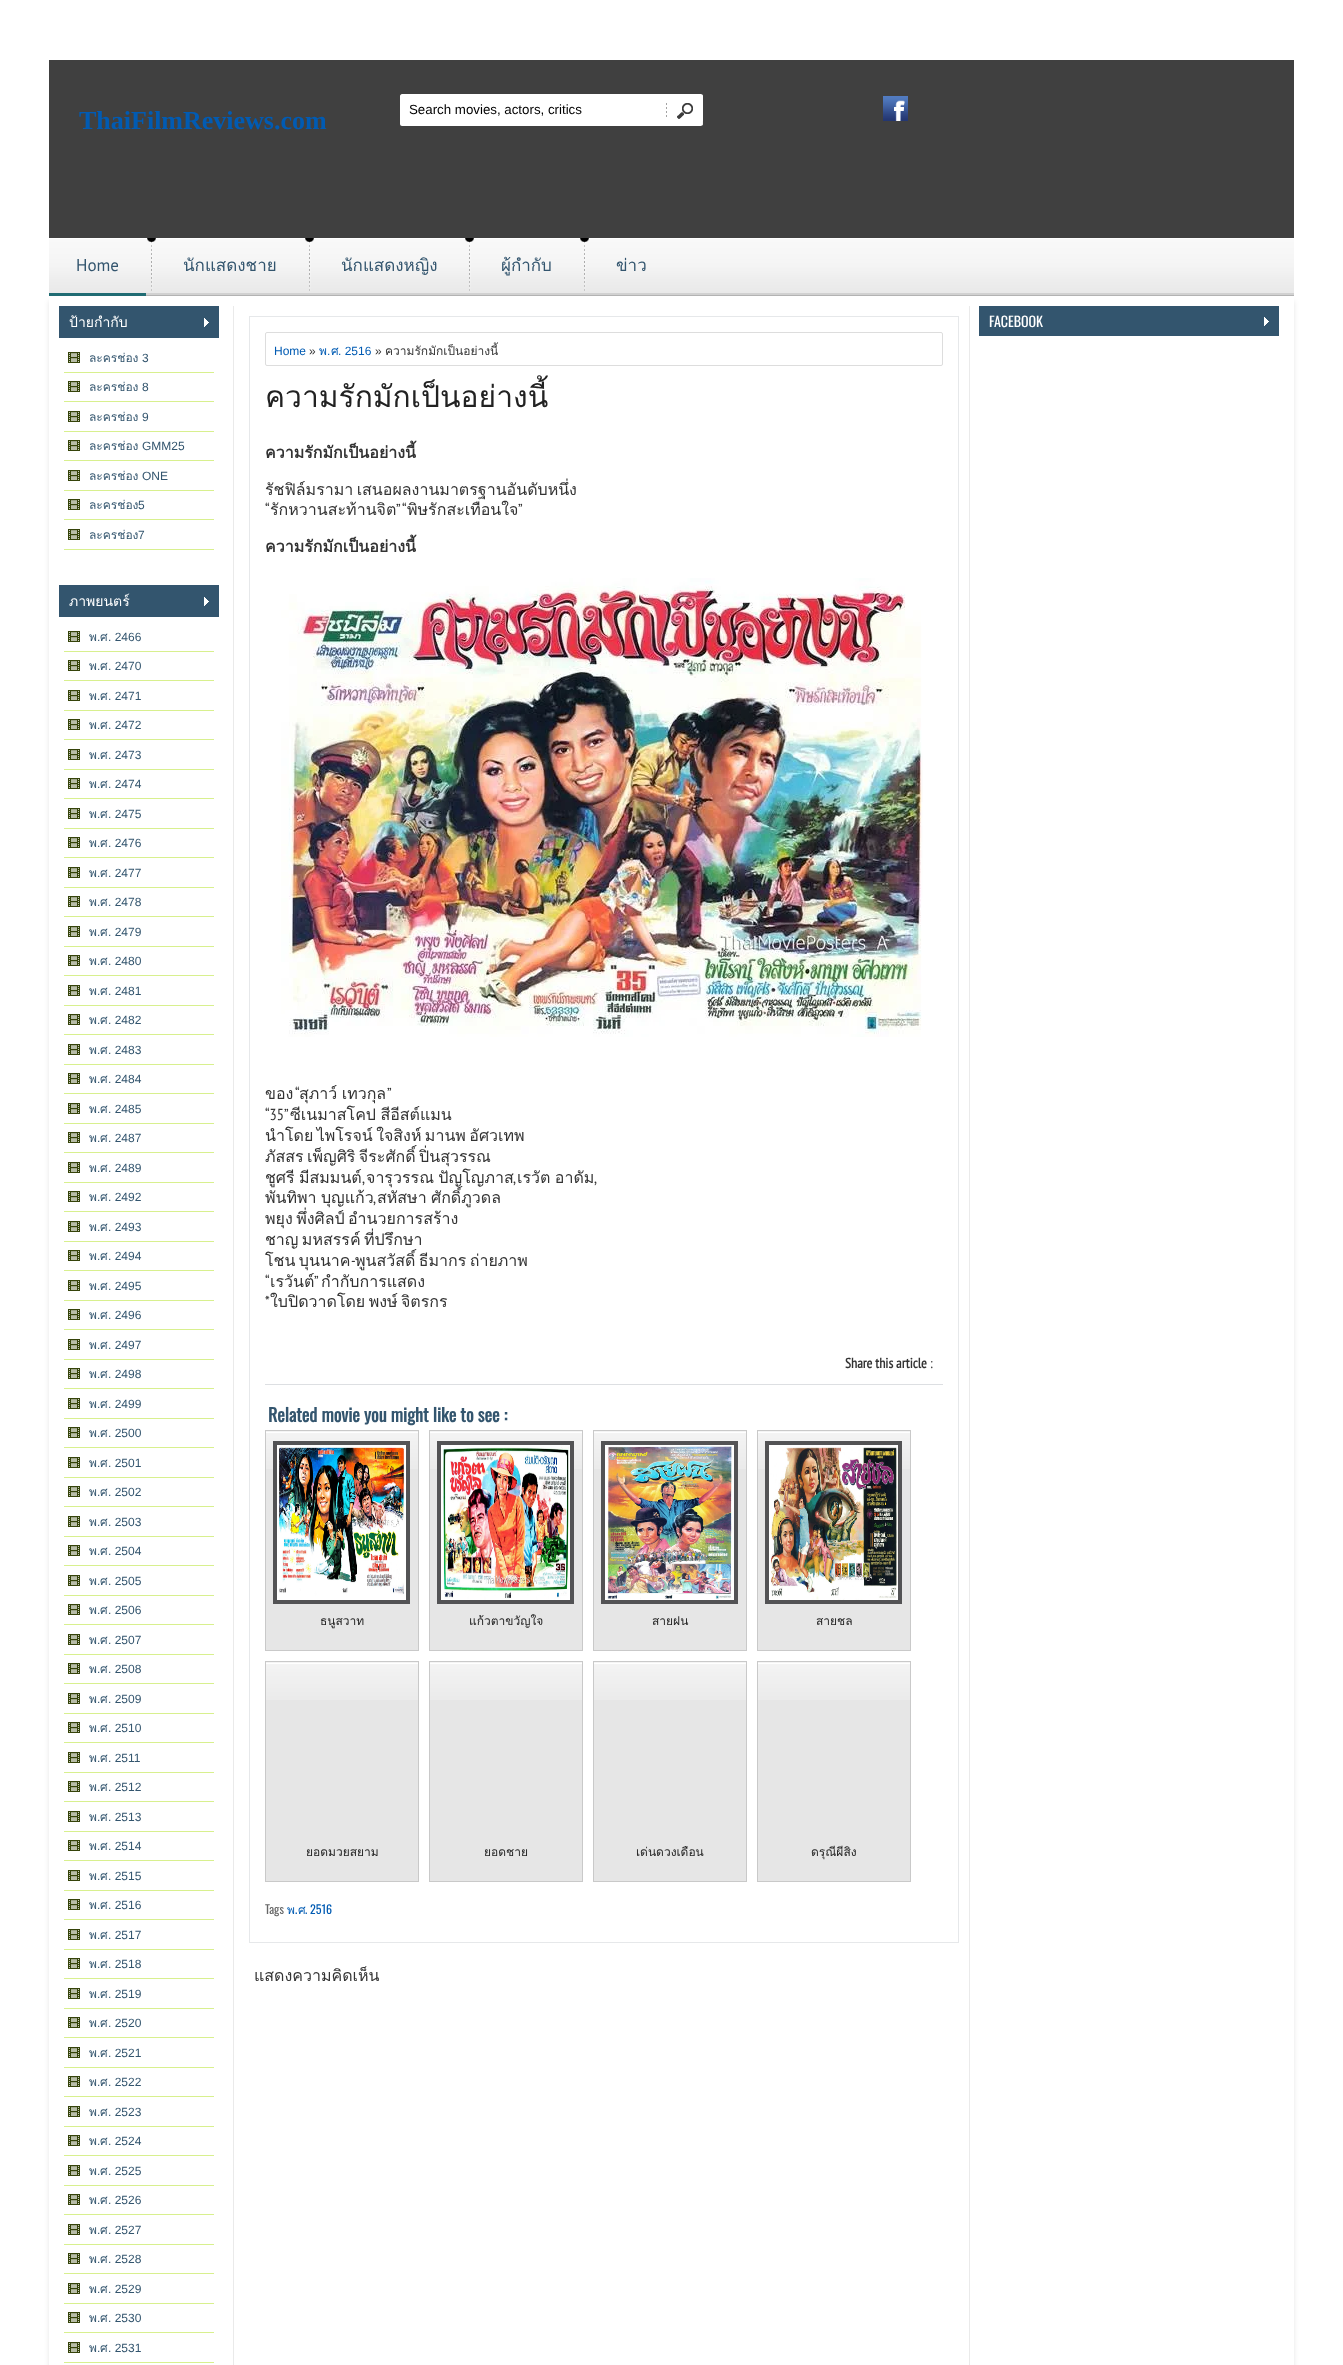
<svg xmlns="http://www.w3.org/2000/svg" width="1343" height="2365">
<defs>
<clipPath id="clip1"><path d="M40 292h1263v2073h-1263zm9 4h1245v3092h-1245z" clip-rule="evenodd"/></clipPath>
</defs>
<rect width="100%" height="100%" fill="#fff"/>
<rect x="49" y="60" width="1245" height="178" fill="#404040"/>
<text x="79" y="129" style="font-family:Liberation Serif;font-size:26px;font-weight:bold;fill:#015bb3">ThaiFilmReviews.com</text>
<path d="M402 94h264v32h-264c-1 0-2-1-2-2v-28c0-1 1-2 2-2z" fill="#fff"/>
<text x="409" y="114" style="font-family:Liberation Sans;font-size:13.3px;fill:#000">Search movies, actors, critics</text>
<image x="666" y="94" width="37" height="32" href="media/1.png"/>
<image x="883" y="96" width="25" height="25" href="media/2.png"/>
<g clip-path="url(#clip1)">
<rect x="49" y="301" width="1245" height="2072" fill="#0000001a" filter="blur(2.5px)"/>
</g>
<image x="49" y="239" width="1245" height="57" href="media/3.png"/>
<rect x="49" y="293" width="97" height="3" fill="#206c73"/>
<text x="76" y="271" style="font-family:PT Sans;font-size:17px;fill:#33556e">Home</text>
<image x="147" y="238" width="9" height="53" href="media/4.png"/>
<text x="183" y="271" style="font-family:Loma;font-size:17px;fill:#33556e">นักแสดงชาย</text>
<image x="305" y="238" width="9" height="53" href="media/4.png"/>
<text x="341" y="271" style="font-family:Loma;font-size:17px;fill:#33556e">นักแสดงหญิง</text>
<image x="465" y="238" width="9" height="53" href="media/4.png"/>
<text x="501" y="271" style="font-family:Loma;font-size:17px;fill:#33556e">ผู้กำกับ</text>
<image x="580" y="238" width="9" height="53" href="media/4.png"/>
<text x="616" y="271" style="font-family:Loma;font-size:17px;fill:#33556e">ข่าว</text>
<rect x="233" y="306" width="1" height="2059" fill="#eaeaea"/>
<rect x="59" y="306" width="160" height="32" fill="#33556e"/>
<image x="204" y="318" width="5" height="9" href="media/5.png"/>
<text x="69" y="327" style="font-family:Loma;font-size:14px;fill:#fff">ป้ายกำกับ</text>
<image x="68" y="352" width="12" height="11" href="media/6.png"/>
<rect x="64" y="372" width="150" height="1" fill="#d8f08e"/>
<text x="89" y="362" style="font-family:Loma;font-size:12px;fill:#33556e">ละครช่อง</text>
<text x="142" y="362" style="font-family:Liberation Sans;font-size:12px;fill:#33556e">3</text>
<image x="68" y="381" width="12" height="11" href="media/6.png"/>
<rect x="64" y="401" width="150" height="1" fill="#d8f08e"/>
<text x="89" y="391" style="font-family:Loma;font-size:12px;fill:#33556e">ละครช่อง</text>
<text x="142" y="391" style="font-family:Liberation Sans;font-size:12px;fill:#33556e">8</text>
<image x="68" y="411" width="12" height="11" href="media/6.png"/>
<rect x="64" y="431" width="150" height="1" fill="#d8f08e"/>
<text x="89" y="421" style="font-family:Loma;font-size:12px;fill:#33556e">ละครช่อง</text>
<text x="142" y="421" style="font-family:Liberation Sans;font-size:12px;fill:#33556e">9</text>
<image x="68" y="440" width="12" height="11" href="media/6.png"/>
<rect x="64" y="460" width="150" height="1" fill="#d8f08e"/>
<text x="89" y="450" style="font-family:Loma;font-size:12px;fill:#33556e">ละครช่อง</text>
<text x="142" y="450" style="font-family:Liberation Sans;font-size:12px;fill:#33556e">GMM25</text>
<image x="68" y="470" width="12" height="11" href="media/6.png"/>
<rect x="64" y="490" width="150" height="1" fill="#d8f08e"/>
<text x="89" y="480" style="font-family:Loma;font-size:12px;fill:#33556e">ละครช่อง</text>
<text x="142" y="480" style="font-family:Liberation Sans;font-size:12px;fill:#33556e">ONE</text>
<image x="68" y="499" width="12" height="11" href="media/6.png"/>
<rect x="64" y="519" width="150" height="1" fill="#d8f08e"/>
<text x="89" y="509" style="font-family:Loma;font-size:12px;fill:#33556e">ละครช่อง</text>
<text x="138" y="509" style="font-family:Liberation Sans;font-size:12px;fill:#33556e">5</text>
<image x="68" y="529" width="12" height="11" href="media/6.png"/>
<rect x="64" y="549" width="150" height="1" fill="#d8f08e"/>
<text x="89" y="539" style="font-family:Loma;font-size:12px;fill:#33556e">ละครช่อง</text>
<text x="138" y="539" style="font-family:Liberation Sans;font-size:12px;fill:#33556e">7</text>
<rect x="59" y="585" width="160" height="32" fill="#33556e"/>
<image x="204" y="597" width="5" height="9" href="media/5.png"/>
<text x="69" y="606" style="font-family:Loma;font-size:14px;fill:#fff">ภาพยนตร์</text>
<image x="68" y="631" width="12" height="11" href="media/6.png"/>
<rect x="64" y="651" width="150" height="1" fill="#d8f08e"/>
<text x="89" y="641" style="font-family:Loma;font-size:12px;fill:#33556e">พ</text>
<text x="97" y="641" style="font-family:Liberation Sans;font-size:12px;fill:#33556e">.</text>
<text x="100" y="641" style="font-family:Loma;font-size:12px;fill:#33556e">ศ</text>
<text x="108" y="641" style="font-family:Liberation Sans;font-size:12px;fill:#33556e">. 2466</text>
<image x="68" y="660" width="12" height="11" href="media/6.png"/>
<rect x="64" y="680" width="150" height="1" fill="#d8f08e"/>
<text x="89" y="670" style="font-family:Loma;font-size:12px;fill:#33556e">พ</text>
<text x="97" y="670" style="font-family:Liberation Sans;font-size:12px;fill:#33556e">.</text>
<text x="100" y="670" style="font-family:Loma;font-size:12px;fill:#33556e">ศ</text>
<text x="108" y="670" style="font-family:Liberation Sans;font-size:12px;fill:#33556e">. 2470</text>
<image x="68" y="690" width="12" height="11" href="media/6.png"/>
<rect x="64" y="710" width="150" height="1" fill="#d8f08e"/>
<text x="89" y="700" style="font-family:Loma;font-size:12px;fill:#33556e">พ</text>
<text x="97" y="700" style="font-family:Liberation Sans;font-size:12px;fill:#33556e">.</text>
<text x="100" y="700" style="font-family:Loma;font-size:12px;fill:#33556e">ศ</text>
<text x="108" y="700" style="font-family:Liberation Sans;font-size:12px;fill:#33556e">. 2471</text>
<image x="68" y="719" width="12" height="11" href="media/6.png"/>
<rect x="64" y="739" width="150" height="1" fill="#d8f08e"/>
<text x="89" y="729" style="font-family:Loma;font-size:12px;fill:#33556e">พ</text>
<text x="97" y="729" style="font-family:Liberation Sans;font-size:12px;fill:#33556e">.</text>
<text x="100" y="729" style="font-family:Loma;font-size:12px;fill:#33556e">ศ</text>
<text x="108" y="729" style="font-family:Liberation Sans;font-size:12px;fill:#33556e">. 2472</text>
<image x="68" y="749" width="12" height="11" href="media/6.png"/>
<rect x="64" y="769" width="150" height="1" fill="#d8f08e"/>
<text x="89" y="759" style="font-family:Loma;font-size:12px;fill:#33556e">พ</text>
<text x="97" y="759" style="font-family:Liberation Sans;font-size:12px;fill:#33556e">.</text>
<text x="100" y="759" style="font-family:Loma;font-size:12px;fill:#33556e">ศ</text>
<text x="108" y="759" style="font-family:Liberation Sans;font-size:12px;fill:#33556e">. 2473</text>
<image x="68" y="778" width="12" height="11" href="media/6.png"/>
<rect x="64" y="798" width="150" height="1" fill="#d8f08e"/>
<text x="89" y="788" style="font-family:Loma;font-size:12px;fill:#33556e">พ</text>
<text x="97" y="788" style="font-family:Liberation Sans;font-size:12px;fill:#33556e">.</text>
<text x="100" y="788" style="font-family:Loma;font-size:12px;fill:#33556e">ศ</text>
<text x="108" y="788" style="font-family:Liberation Sans;font-size:12px;fill:#33556e">. 2474</text>
<image x="68" y="808" width="12" height="11" href="media/6.png"/>
<rect x="64" y="828" width="150" height="1" fill="#d8f08e"/>
<text x="89" y="818" style="font-family:Loma;font-size:12px;fill:#33556e">พ</text>
<text x="97" y="818" style="font-family:Liberation Sans;font-size:12px;fill:#33556e">.</text>
<text x="100" y="818" style="font-family:Loma;font-size:12px;fill:#33556e">ศ</text>
<text x="108" y="818" style="font-family:Liberation Sans;font-size:12px;fill:#33556e">. 2475</text>
<image x="68" y="837" width="12" height="11" href="media/6.png"/>
<rect x="64" y="857" width="150" height="1" fill="#d8f08e"/>
<text x="89" y="847" style="font-family:Loma;font-size:12px;fill:#33556e">พ</text>
<text x="97" y="847" style="font-family:Liberation Sans;font-size:12px;fill:#33556e">.</text>
<text x="100" y="847" style="font-family:Loma;font-size:12px;fill:#33556e">ศ</text>
<text x="108" y="847" style="font-family:Liberation Sans;font-size:12px;fill:#33556e">. 2476</text>
<image x="68" y="867" width="12" height="11" href="media/6.png"/>
<rect x="64" y="887" width="150" height="1" fill="#d8f08e"/>
<text x="89" y="877" style="font-family:Loma;font-size:12px;fill:#33556e">พ</text>
<text x="97" y="877" style="font-family:Liberation Sans;font-size:12px;fill:#33556e">.</text>
<text x="100" y="877" style="font-family:Loma;font-size:12px;fill:#33556e">ศ</text>
<text x="108" y="877" style="font-family:Liberation Sans;font-size:12px;fill:#33556e">. 2477</text>
<image x="68" y="896" width="12" height="11" href="media/6.png"/>
<rect x="64" y="916" width="150" height="1" fill="#d8f08e"/>
<text x="89" y="906" style="font-family:Loma;font-size:12px;fill:#33556e">พ</text>
<text x="97" y="906" style="font-family:Liberation Sans;font-size:12px;fill:#33556e">.</text>
<text x="100" y="906" style="font-family:Loma;font-size:12px;fill:#33556e">ศ</text>
<text x="108" y="906" style="font-family:Liberation Sans;font-size:12px;fill:#33556e">. 2478</text>
<image x="68" y="926" width="12" height="11" href="media/6.png"/>
<rect x="64" y="946" width="150" height="1" fill="#d8f08e"/>
<text x="89" y="936" style="font-family:Loma;font-size:12px;fill:#33556e">พ</text>
<text x="97" y="936" style="font-family:Liberation Sans;font-size:12px;fill:#33556e">.</text>
<text x="100" y="936" style="font-family:Loma;font-size:12px;fill:#33556e">ศ</text>
<text x="108" y="936" style="font-family:Liberation Sans;font-size:12px;fill:#33556e">. 2479</text>
<image x="68" y="955" width="12" height="11" href="media/6.png"/>
<rect x="64" y="975" width="150" height="1" fill="#d8f08e"/>
<text x="89" y="965" style="font-family:Loma;font-size:12px;fill:#33556e">พ</text>
<text x="97" y="965" style="font-family:Liberation Sans;font-size:12px;fill:#33556e">.</text>
<text x="100" y="965" style="font-family:Loma;font-size:12px;fill:#33556e">ศ</text>
<text x="108" y="965" style="font-family:Liberation Sans;font-size:12px;fill:#33556e">. 2480</text>
<image x="68" y="985" width="12" height="11" href="media/6.png"/>
<rect x="64" y="1005" width="150" height="1" fill="#d8f08e"/>
<text x="89" y="995" style="font-family:Loma;font-size:12px;fill:#33556e">พ</text>
<text x="97" y="995" style="font-family:Liberation Sans;font-size:12px;fill:#33556e">.</text>
<text x="100" y="995" style="font-family:Loma;font-size:12px;fill:#33556e">ศ</text>
<text x="108" y="995" style="font-family:Liberation Sans;font-size:12px;fill:#33556e">. 2481</text>
<image x="68" y="1014" width="12" height="11" href="media/6.png"/>
<rect x="64" y="1034" width="150" height="1" fill="#d8f08e"/>
<text x="89" y="1024" style="font-family:Loma;font-size:12px;fill:#33556e">พ</text>
<text x="97" y="1024" style="font-family:Liberation Sans;font-size:12px;fill:#33556e">.</text>
<text x="100" y="1024" style="font-family:Loma;font-size:12px;fill:#33556e">ศ</text>
<text x="108" y="1024" style="font-family:Liberation Sans;font-size:12px;fill:#33556e">. 2482</text>
<image x="68" y="1044" width="12" height="11" href="media/6.png"/>
<rect x="64" y="1064" width="150" height="1" fill="#d8f08e"/>
<text x="89" y="1054" style="font-family:Loma;font-size:12px;fill:#33556e">พ</text>
<text x="97" y="1054" style="font-family:Liberation Sans;font-size:12px;fill:#33556e">.</text>
<text x="100" y="1054" style="font-family:Loma;font-size:12px;fill:#33556e">ศ</text>
<text x="108" y="1054" style="font-family:Liberation Sans;font-size:12px;fill:#33556e">. 2483</text>
<image x="68" y="1073" width="12" height="11" href="media/6.png"/>
<rect x="64" y="1093" width="150" height="1" fill="#d8f08e"/>
<text x="89" y="1083" style="font-family:Loma;font-size:12px;fill:#33556e">พ</text>
<text x="97" y="1083" style="font-family:Liberation Sans;font-size:12px;fill:#33556e">.</text>
<text x="100" y="1083" style="font-family:Loma;font-size:12px;fill:#33556e">ศ</text>
<text x="108" y="1083" style="font-family:Liberation Sans;font-size:12px;fill:#33556e">. 2484</text>
<image x="68" y="1103" width="12" height="11" href="media/6.png"/>
<rect x="64" y="1123" width="150" height="1" fill="#d8f08e"/>
<text x="89" y="1113" style="font-family:Loma;font-size:12px;fill:#33556e">พ</text>
<text x="97" y="1113" style="font-family:Liberation Sans;font-size:12px;fill:#33556e">.</text>
<text x="100" y="1113" style="font-family:Loma;font-size:12px;fill:#33556e">ศ</text>
<text x="108" y="1113" style="font-family:Liberation Sans;font-size:12px;fill:#33556e">. 2485</text>
<image x="68" y="1132" width="12" height="11" href="media/6.png"/>
<rect x="64" y="1152" width="150" height="1" fill="#d8f08e"/>
<text x="89" y="1142" style="font-family:Loma;font-size:12px;fill:#33556e">พ</text>
<text x="97" y="1142" style="font-family:Liberation Sans;font-size:12px;fill:#33556e">.</text>
<text x="100" y="1142" style="font-family:Loma;font-size:12px;fill:#33556e">ศ</text>
<text x="108" y="1142" style="font-family:Liberation Sans;font-size:12px;fill:#33556e">. 2487</text>
<image x="68" y="1162" width="12" height="11" href="media/6.png"/>
<rect x="64" y="1182" width="150" height="1" fill="#d8f08e"/>
<text x="89" y="1172" style="font-family:Loma;font-size:12px;fill:#33556e">พ</text>
<text x="97" y="1172" style="font-family:Liberation Sans;font-size:12px;fill:#33556e">.</text>
<text x="100" y="1172" style="font-family:Loma;font-size:12px;fill:#33556e">ศ</text>
<text x="108" y="1172" style="font-family:Liberation Sans;font-size:12px;fill:#33556e">. 2489</text>
<image x="68" y="1191" width="12" height="11" href="media/6.png"/>
<rect x="64" y="1211" width="150" height="1" fill="#d8f08e"/>
<text x="89" y="1201" style="font-family:Loma;font-size:12px;fill:#33556e">พ</text>
<text x="97" y="1201" style="font-family:Liberation Sans;font-size:12px;fill:#33556e">.</text>
<text x="100" y="1201" style="font-family:Loma;font-size:12px;fill:#33556e">ศ</text>
<text x="108" y="1201" style="font-family:Liberation Sans;font-size:12px;fill:#33556e">. 2492</text>
<image x="68" y="1221" width="12" height="11" href="media/6.png"/>
<rect x="64" y="1241" width="150" height="1" fill="#d8f08e"/>
<text x="89" y="1231" style="font-family:Loma;font-size:12px;fill:#33556e">พ</text>
<text x="97" y="1231" style="font-family:Liberation Sans;font-size:12px;fill:#33556e">.</text>
<text x="100" y="1231" style="font-family:Loma;font-size:12px;fill:#33556e">ศ</text>
<text x="108" y="1231" style="font-family:Liberation Sans;font-size:12px;fill:#33556e">. 2493</text>
<image x="68" y="1250" width="12" height="11" href="media/6.png"/>
<rect x="64" y="1270" width="150" height="1" fill="#d8f08e"/>
<text x="89" y="1260" style="font-family:Loma;font-size:12px;fill:#33556e">พ</text>
<text x="97" y="1260" style="font-family:Liberation Sans;font-size:12px;fill:#33556e">.</text>
<text x="100" y="1260" style="font-family:Loma;font-size:12px;fill:#33556e">ศ</text>
<text x="108" y="1260" style="font-family:Liberation Sans;font-size:12px;fill:#33556e">. 2494</text>
<image x="68" y="1280" width="12" height="11" href="media/6.png"/>
<rect x="64" y="1300" width="150" height="1" fill="#d8f08e"/>
<text x="89" y="1290" style="font-family:Loma;font-size:12px;fill:#33556e">พ</text>
<text x="97" y="1290" style="font-family:Liberation Sans;font-size:12px;fill:#33556e">.</text>
<text x="100" y="1290" style="font-family:Loma;font-size:12px;fill:#33556e">ศ</text>
<text x="108" y="1290" style="font-family:Liberation Sans;font-size:12px;fill:#33556e">. 2495</text>
<image x="68" y="1309" width="12" height="11" href="media/6.png"/>
<rect x="64" y="1329" width="150" height="1" fill="#d8f08e"/>
<text x="89" y="1319" style="font-family:Loma;font-size:12px;fill:#33556e">พ</text>
<text x="97" y="1319" style="font-family:Liberation Sans;font-size:12px;fill:#33556e">.</text>
<text x="100" y="1319" style="font-family:Loma;font-size:12px;fill:#33556e">ศ</text>
<text x="108" y="1319" style="font-family:Liberation Sans;font-size:12px;fill:#33556e">. 2496</text>
<image x="68" y="1339" width="12" height="11" href="media/6.png"/>
<rect x="64" y="1359" width="150" height="1" fill="#d8f08e"/>
<text x="89" y="1349" style="font-family:Loma;font-size:12px;fill:#33556e">พ</text>
<text x="97" y="1349" style="font-family:Liberation Sans;font-size:12px;fill:#33556e">.</text>
<text x="100" y="1349" style="font-family:Loma;font-size:12px;fill:#33556e">ศ</text>
<text x="108" y="1349" style="font-family:Liberation Sans;font-size:12px;fill:#33556e">. 2497</text>
<image x="68" y="1368" width="12" height="11" href="media/6.png"/>
<rect x="64" y="1388" width="150" height="1" fill="#d8f08e"/>
<text x="89" y="1378" style="font-family:Loma;font-size:12px;fill:#33556e">พ</text>
<text x="97" y="1378" style="font-family:Liberation Sans;font-size:12px;fill:#33556e">.</text>
<text x="100" y="1378" style="font-family:Loma;font-size:12px;fill:#33556e">ศ</text>
<text x="108" y="1378" style="font-family:Liberation Sans;font-size:12px;fill:#33556e">. 2498</text>
<image x="68" y="1398" width="12" height="11" href="media/6.png"/>
<rect x="64" y="1418" width="150" height="1" fill="#d8f08e"/>
<text x="89" y="1408" style="font-family:Loma;font-size:12px;fill:#33556e">พ</text>
<text x="97" y="1408" style="font-family:Liberation Sans;font-size:12px;fill:#33556e">.</text>
<text x="100" y="1408" style="font-family:Loma;font-size:12px;fill:#33556e">ศ</text>
<text x="108" y="1408" style="font-family:Liberation Sans;font-size:12px;fill:#33556e">. 2499</text>
<image x="68" y="1427" width="12" height="11" href="media/6.png"/>
<rect x="64" y="1447" width="150" height="1" fill="#d8f08e"/>
<text x="89" y="1437" style="font-family:Loma;font-size:12px;fill:#33556e">พ</text>
<text x="97" y="1437" style="font-family:Liberation Sans;font-size:12px;fill:#33556e">.</text>
<text x="100" y="1437" style="font-family:Loma;font-size:12px;fill:#33556e">ศ</text>
<text x="108" y="1437" style="font-family:Liberation Sans;font-size:12px;fill:#33556e">. 2500</text>
<image x="68" y="1457" width="12" height="11" href="media/6.png"/>
<rect x="64" y="1477" width="150" height="1" fill="#d8f08e"/>
<text x="89" y="1467" style="font-family:Loma;font-size:12px;fill:#33556e">พ</text>
<text x="97" y="1467" style="font-family:Liberation Sans;font-size:12px;fill:#33556e">.</text>
<text x="100" y="1467" style="font-family:Loma;font-size:12px;fill:#33556e">ศ</text>
<text x="108" y="1467" style="font-family:Liberation Sans;font-size:12px;fill:#33556e">. 2501</text>
<image x="68" y="1486" width="12" height="11" href="media/6.png"/>
<rect x="64" y="1506" width="150" height="1" fill="#d8f08e"/>
<text x="89" y="1496" style="font-family:Loma;font-size:12px;fill:#33556e">พ</text>
<text x="97" y="1496" style="font-family:Liberation Sans;font-size:12px;fill:#33556e">.</text>
<text x="100" y="1496" style="font-family:Loma;font-size:12px;fill:#33556e">ศ</text>
<text x="108" y="1496" style="font-family:Liberation Sans;font-size:12px;fill:#33556e">. 2502</text>
<image x="68" y="1516" width="12" height="11" href="media/6.png"/>
<rect x="64" y="1536" width="150" height="1" fill="#d8f08e"/>
<text x="89" y="1526" style="font-family:Loma;font-size:12px;fill:#33556e">พ</text>
<text x="97" y="1526" style="font-family:Liberation Sans;font-size:12px;fill:#33556e">.</text>
<text x="100" y="1526" style="font-family:Loma;font-size:12px;fill:#33556e">ศ</text>
<text x="108" y="1526" style="font-family:Liberation Sans;font-size:12px;fill:#33556e">. 2503</text>
<image x="68" y="1545" width="12" height="11" href="media/6.png"/>
<rect x="64" y="1565" width="150" height="1" fill="#d8f08e"/>
<text x="89" y="1555" style="font-family:Loma;font-size:12px;fill:#33556e">พ</text>
<text x="97" y="1555" style="font-family:Liberation Sans;font-size:12px;fill:#33556e">.</text>
<text x="100" y="1555" style="font-family:Loma;font-size:12px;fill:#33556e">ศ</text>
<text x="108" y="1555" style="font-family:Liberation Sans;font-size:12px;fill:#33556e">. 2504</text>
<image x="68" y="1575" width="12" height="11" href="media/6.png"/>
<rect x="64" y="1595" width="150" height="1" fill="#d8f08e"/>
<text x="89" y="1585" style="font-family:Loma;font-size:12px;fill:#33556e">พ</text>
<text x="97" y="1585" style="font-family:Liberation Sans;font-size:12px;fill:#33556e">.</text>
<text x="100" y="1585" style="font-family:Loma;font-size:12px;fill:#33556e">ศ</text>
<text x="108" y="1585" style="font-family:Liberation Sans;font-size:12px;fill:#33556e">. 2505</text>
<image x="68" y="1604" width="12" height="11" href="media/6.png"/>
<rect x="64" y="1624" width="150" height="1" fill="#d8f08e"/>
<text x="89" y="1614" style="font-family:Loma;font-size:12px;fill:#33556e">พ</text>
<text x="97" y="1614" style="font-family:Liberation Sans;font-size:12px;fill:#33556e">.</text>
<text x="100" y="1614" style="font-family:Loma;font-size:12px;fill:#33556e">ศ</text>
<text x="108" y="1614" style="font-family:Liberation Sans;font-size:12px;fill:#33556e">. 2506</text>
<image x="68" y="1634" width="12" height="11" href="media/6.png"/>
<rect x="64" y="1654" width="150" height="1" fill="#d8f08e"/>
<text x="89" y="1644" style="font-family:Loma;font-size:12px;fill:#33556e">พ</text>
<text x="97" y="1644" style="font-family:Liberation Sans;font-size:12px;fill:#33556e">.</text>
<text x="100" y="1644" style="font-family:Loma;font-size:12px;fill:#33556e">ศ</text>
<text x="108" y="1644" style="font-family:Liberation Sans;font-size:12px;fill:#33556e">. 2507</text>
<image x="68" y="1663" width="12" height="11" href="media/6.png"/>
<rect x="64" y="1683" width="150" height="1" fill="#d8f08e"/>
<text x="89" y="1673" style="font-family:Loma;font-size:12px;fill:#33556e">พ</text>
<text x="97" y="1673" style="font-family:Liberation Sans;font-size:12px;fill:#33556e">.</text>
<text x="100" y="1673" style="font-family:Loma;font-size:12px;fill:#33556e">ศ</text>
<text x="108" y="1673" style="font-family:Liberation Sans;font-size:12px;fill:#33556e">. 2508</text>
<image x="68" y="1693" width="12" height="11" href="media/6.png"/>
<rect x="64" y="1713" width="150" height="1" fill="#d8f08e"/>
<text x="89" y="1703" style="font-family:Loma;font-size:12px;fill:#33556e">พ</text>
<text x="97" y="1703" style="font-family:Liberation Sans;font-size:12px;fill:#33556e">.</text>
<text x="100" y="1703" style="font-family:Loma;font-size:12px;fill:#33556e">ศ</text>
<text x="108" y="1703" style="font-family:Liberation Sans;font-size:12px;fill:#33556e">. 2509</text>
<image x="68" y="1722" width="12" height="11" href="media/6.png"/>
<rect x="64" y="1742" width="150" height="1" fill="#d8f08e"/>
<text x="89" y="1732" style="font-family:Loma;font-size:12px;fill:#33556e">พ</text>
<text x="97" y="1732" style="font-family:Liberation Sans;font-size:12px;fill:#33556e">.</text>
<text x="100" y="1732" style="font-family:Loma;font-size:12px;fill:#33556e">ศ</text>
<text x="108" y="1732" style="font-family:Liberation Sans;font-size:12px;fill:#33556e">. 2510</text>
<image x="68" y="1752" width="12" height="11" href="media/6.png"/>
<rect x="64" y="1772" width="150" height="1" fill="#d8f08e"/>
<text x="89" y="1762" style="font-family:Loma;font-size:12px;fill:#33556e">พ</text>
<text x="97" y="1762" style="font-family:Liberation Sans;font-size:12px;fill:#33556e">.</text>
<text x="100" y="1762" style="font-family:Loma;font-size:12px;fill:#33556e">ศ</text>
<text x="108" y="1762" style="font-family:Liberation Sans;font-size:12px;fill:#33556e">. 2511</text>
<image x="68" y="1781" width="12" height="11" href="media/6.png"/>
<rect x="64" y="1801" width="150" height="1" fill="#d8f08e"/>
<text x="89" y="1791" style="font-family:Loma;font-size:12px;fill:#33556e">พ</text>
<text x="97" y="1791" style="font-family:Liberation Sans;font-size:12px;fill:#33556e">.</text>
<text x="100" y="1791" style="font-family:Loma;font-size:12px;fill:#33556e">ศ</text>
<text x="108" y="1791" style="font-family:Liberation Sans;font-size:12px;fill:#33556e">. 2512</text>
<image x="68" y="1811" width="12" height="11" href="media/6.png"/>
<rect x="64" y="1831" width="150" height="1" fill="#d8f08e"/>
<text x="89" y="1821" style="font-family:Loma;font-size:12px;fill:#33556e">พ</text>
<text x="97" y="1821" style="font-family:Liberation Sans;font-size:12px;fill:#33556e">.</text>
<text x="100" y="1821" style="font-family:Loma;font-size:12px;fill:#33556e">ศ</text>
<text x="108" y="1821" style="font-family:Liberation Sans;font-size:12px;fill:#33556e">. 2513</text>
<image x="68" y="1840" width="12" height="11" href="media/6.png"/>
<rect x="64" y="1860" width="150" height="1" fill="#d8f08e"/>
<text x="89" y="1850" style="font-family:Loma;font-size:12px;fill:#33556e">พ</text>
<text x="97" y="1850" style="font-family:Liberation Sans;font-size:12px;fill:#33556e">.</text>
<text x="100" y="1850" style="font-family:Loma;font-size:12px;fill:#33556e">ศ</text>
<text x="108" y="1850" style="font-family:Liberation Sans;font-size:12px;fill:#33556e">. 2514</text>
<image x="68" y="1870" width="12" height="11" href="media/6.png"/>
<rect x="64" y="1890" width="150" height="1" fill="#d8f08e"/>
<text x="89" y="1880" style="font-family:Loma;font-size:12px;fill:#33556e">พ</text>
<text x="97" y="1880" style="font-family:Liberation Sans;font-size:12px;fill:#33556e">.</text>
<text x="100" y="1880" style="font-family:Loma;font-size:12px;fill:#33556e">ศ</text>
<text x="108" y="1880" style="font-family:Liberation Sans;font-size:12px;fill:#33556e">. 2515</text>
<image x="68" y="1899" width="12" height="11" href="media/6.png"/>
<rect x="64" y="1919" width="150" height="1" fill="#d8f08e"/>
<text x="89" y="1909" style="font-family:Loma;font-size:12px;fill:#33556e">พ</text>
<text x="97" y="1909" style="font-family:Liberation Sans;font-size:12px;fill:#33556e">.</text>
<text x="100" y="1909" style="font-family:Loma;font-size:12px;fill:#33556e">ศ</text>
<text x="108" y="1909" style="font-family:Liberation Sans;font-size:12px;fill:#33556e">. 2516</text>
<image x="68" y="1929" width="12" height="11" href="media/6.png"/>
<rect x="64" y="1949" width="150" height="1" fill="#d8f08e"/>
<text x="89" y="1939" style="font-family:Loma;font-size:12px;fill:#33556e">พ</text>
<text x="97" y="1939" style="font-family:Liberation Sans;font-size:12px;fill:#33556e">.</text>
<text x="100" y="1939" style="font-family:Loma;font-size:12px;fill:#33556e">ศ</text>
<text x="108" y="1939" style="font-family:Liberation Sans;font-size:12px;fill:#33556e">. 2517</text>
<image x="68" y="1958" width="12" height="11" href="media/6.png"/>
<rect x="64" y="1978" width="150" height="1" fill="#d8f08e"/>
<text x="89" y="1968" style="font-family:Loma;font-size:12px;fill:#33556e">พ</text>
<text x="97" y="1968" style="font-family:Liberation Sans;font-size:12px;fill:#33556e">.</text>
<text x="100" y="1968" style="font-family:Loma;font-size:12px;fill:#33556e">ศ</text>
<text x="108" y="1968" style="font-family:Liberation Sans;font-size:12px;fill:#33556e">. 2518</text>
<image x="68" y="1988" width="12" height="11" href="media/6.png"/>
<rect x="64" y="2008" width="150" height="1" fill="#d8f08e"/>
<text x="89" y="1998" style="font-family:Loma;font-size:12px;fill:#33556e">พ</text>
<text x="97" y="1998" style="font-family:Liberation Sans;font-size:12px;fill:#33556e">.</text>
<text x="100" y="1998" style="font-family:Loma;font-size:12px;fill:#33556e">ศ</text>
<text x="108" y="1998" style="font-family:Liberation Sans;font-size:12px;fill:#33556e">. 2519</text>
<image x="68" y="2017" width="12" height="11" href="media/6.png"/>
<rect x="64" y="2037" width="150" height="1" fill="#d8f08e"/>
<text x="89" y="2027" style="font-family:Loma;font-size:12px;fill:#33556e">พ</text>
<text x="97" y="2027" style="font-family:Liberation Sans;font-size:12px;fill:#33556e">.</text>
<text x="100" y="2027" style="font-family:Loma;font-size:12px;fill:#33556e">ศ</text>
<text x="108" y="2027" style="font-family:Liberation Sans;font-size:12px;fill:#33556e">. 2520</text>
<image x="68" y="2047" width="12" height="11" href="media/6.png"/>
<rect x="64" y="2067" width="150" height="1" fill="#d8f08e"/>
<text x="89" y="2057" style="font-family:Loma;font-size:12px;fill:#33556e">พ</text>
<text x="97" y="2057" style="font-family:Liberation Sans;font-size:12px;fill:#33556e">.</text>
<text x="100" y="2057" style="font-family:Loma;font-size:12px;fill:#33556e">ศ</text>
<text x="108" y="2057" style="font-family:Liberation Sans;font-size:12px;fill:#33556e">. 2521</text>
<image x="68" y="2076" width="12" height="11" href="media/6.png"/>
<rect x="64" y="2096" width="150" height="1" fill="#d8f08e"/>
<text x="89" y="2086" style="font-family:Loma;font-size:12px;fill:#33556e">พ</text>
<text x="97" y="2086" style="font-family:Liberation Sans;font-size:12px;fill:#33556e">.</text>
<text x="100" y="2086" style="font-family:Loma;font-size:12px;fill:#33556e">ศ</text>
<text x="108" y="2086" style="font-family:Liberation Sans;font-size:12px;fill:#33556e">. 2522</text>
<image x="68" y="2106" width="12" height="11" href="media/6.png"/>
<rect x="64" y="2126" width="150" height="1" fill="#d8f08e"/>
<text x="89" y="2116" style="font-family:Loma;font-size:12px;fill:#33556e">พ</text>
<text x="97" y="2116" style="font-family:Liberation Sans;font-size:12px;fill:#33556e">.</text>
<text x="100" y="2116" style="font-family:Loma;font-size:12px;fill:#33556e">ศ</text>
<text x="108" y="2116" style="font-family:Liberation Sans;font-size:12px;fill:#33556e">. 2523</text>
<image x="68" y="2135" width="12" height="11" href="media/6.png"/>
<rect x="64" y="2155" width="150" height="1" fill="#d8f08e"/>
<text x="89" y="2145" style="font-family:Loma;font-size:12px;fill:#33556e">พ</text>
<text x="97" y="2145" style="font-family:Liberation Sans;font-size:12px;fill:#33556e">.</text>
<text x="100" y="2145" style="font-family:Loma;font-size:12px;fill:#33556e">ศ</text>
<text x="108" y="2145" style="font-family:Liberation Sans;font-size:12px;fill:#33556e">. 2524</text>
<image x="68" y="2165" width="12" height="11" href="media/6.png"/>
<rect x="64" y="2185" width="150" height="1" fill="#d8f08e"/>
<text x="89" y="2175" style="font-family:Loma;font-size:12px;fill:#33556e">พ</text>
<text x="97" y="2175" style="font-family:Liberation Sans;font-size:12px;fill:#33556e">.</text>
<text x="100" y="2175" style="font-family:Loma;font-size:12px;fill:#33556e">ศ</text>
<text x="108" y="2175" style="font-family:Liberation Sans;font-size:12px;fill:#33556e">. 2525</text>
<image x="68" y="2194" width="12" height="11" href="media/6.png"/>
<rect x="64" y="2214" width="150" height="1" fill="#d8f08e"/>
<text x="89" y="2204" style="font-family:Loma;font-size:12px;fill:#33556e">พ</text>
<text x="97" y="2204" style="font-family:Liberation Sans;font-size:12px;fill:#33556e">.</text>
<text x="100" y="2204" style="font-family:Loma;font-size:12px;fill:#33556e">ศ</text>
<text x="108" y="2204" style="font-family:Liberation Sans;font-size:12px;fill:#33556e">. 2526</text>
<image x="68" y="2224" width="12" height="11" href="media/6.png"/>
<rect x="64" y="2244" width="150" height="1" fill="#d8f08e"/>
<text x="89" y="2234" style="font-family:Loma;font-size:12px;fill:#33556e">พ</text>
<text x="97" y="2234" style="font-family:Liberation Sans;font-size:12px;fill:#33556e">.</text>
<text x="100" y="2234" style="font-family:Loma;font-size:12px;fill:#33556e">ศ</text>
<text x="108" y="2234" style="font-family:Liberation Sans;font-size:12px;fill:#33556e">. 2527</text>
<image x="68" y="2253" width="12" height="11" href="media/6.png"/>
<rect x="64" y="2273" width="150" height="1" fill="#d8f08e"/>
<text x="89" y="2263" style="font-family:Loma;font-size:12px;fill:#33556e">พ</text>
<text x="97" y="2263" style="font-family:Liberation Sans;font-size:12px;fill:#33556e">.</text>
<text x="100" y="2263" style="font-family:Loma;font-size:12px;fill:#33556e">ศ</text>
<text x="108" y="2263" style="font-family:Liberation Sans;font-size:12px;fill:#33556e">. 2528</text>
<image x="68" y="2283" width="12" height="11" href="media/6.png"/>
<rect x="64" y="2303" width="150" height="1" fill="#d8f08e"/>
<text x="89" y="2293" style="font-family:Loma;font-size:12px;fill:#33556e">พ</text>
<text x="97" y="2293" style="font-family:Liberation Sans;font-size:12px;fill:#33556e">.</text>
<text x="100" y="2293" style="font-family:Loma;font-size:12px;fill:#33556e">ศ</text>
<text x="108" y="2293" style="font-family:Liberation Sans;font-size:12px;fill:#33556e">. 2529</text>
<image x="68" y="2312" width="12" height="11" href="media/6.png"/>
<rect x="64" y="2332" width="150" height="1" fill="#d8f08e"/>
<text x="89" y="2322" style="font-family:Loma;font-size:12px;fill:#33556e">พ</text>
<text x="97" y="2322" style="font-family:Liberation Sans;font-size:12px;fill:#33556e">.</text>
<text x="100" y="2322" style="font-family:Loma;font-size:12px;fill:#33556e">ศ</text>
<text x="108" y="2322" style="font-family:Liberation Sans;font-size:12px;fill:#33556e">. 2530</text>
<image x="68" y="2342" width="12" height="11" href="media/6.png"/>
<rect x="64" y="2362" width="150" height="1" fill="#d8f08e"/>
<text x="89" y="2352" style="font-family:Loma;font-size:12px;fill:#33556e">พ</text>
<text x="97" y="2352" style="font-family:Liberation Sans;font-size:12px;fill:#33556e">.</text>
<text x="100" y="2352" style="font-family:Loma;font-size:12px;fill:#33556e">ศ</text>
<text x="108" y="2352" style="font-family:Liberation Sans;font-size:12px;fill:#33556e">. 2531</text>
<rect x="979" y="306" width="300" height="30" fill="#33556e"/>
<image x="1264" y="317" width="5" height="9" href="media/5.png"/>
<text x="989" y="327" style="font-family:Oswald;font-size:14px;fill:#fff">FACEBOOK</text>
<rect x="969" y="306" width="1" height="2059" fill="#eaeaea"/>
<rect x="249.5" y="316.5" width="709" height="1626" fill="none" stroke="#e6e8ea"/>
<rect x="265.5" y="332.5" width="677" height="33" rx="1.5" fill="none" stroke="#ddd"/>
<text x="274" y="355" style="font-family:Liberation Sans;font-size:12px;fill:#015bb3">Home</text>
<text x="309" y="355" style="font-family:Liberation Sans;font-size:12px;fill:#333">»</text>
<text x="319" y="355" style="font-family:Loma;font-size:12px;fill:#015bb3">พ</text>
<text x="327" y="355" style="font-family:Liberation Sans;font-size:12px;fill:#015bb3">.</text>
<text x="331" y="355" style="font-family:Loma;font-size:12px;fill:#015bb3">ศ</text>
<text x="338" y="355" style="font-family:Liberation Sans;font-size:12px;fill:#015bb3">. 2516</text>
<text x="375" y="355" style="font-family:Liberation Sans;font-size:12px;fill:#333">»</text>
<text x="385" y="355" style="font-family:Loma;font-size:12px;fill:#333">ความรักมักเป็นอย่างนี้</text>
<text x="265" y="407" style="font-family:Loma;font-size:30px;fill:#222">ความรักมักเป็นอย่างนี้</text>
<text x="265" y="458" style="font-family:Loma;font-size:16px;font-weight:bold;fill:#333">ความรักมักเป็นอย่างนี้</text>
<text x="265" y="495" word-spacing="-2" style="font-family:Loma;font-size:16px;fill:#333">รัชฟิล์มรามา เสนอผลงานมาตรฐานอันดับหนึ่</text>
<text x="569" y="495" style="font-family:Loma;font-size:16px;fill:#333">ง</text>
<text x="265" y="515" style="font-family:PT Sans Narrow;font-size:16px;fill:#333">“</text>
<text x="270" y="515" style="font-family:Loma;font-size:16px;fill:#333">รักหวานสะท้านจิต</text>
<text x="396" y="515" style="font-family:PT Sans Narrow;font-size:16px;fill:#333">” “</text>
<text x="407" y="515" style="font-family:Loma;font-size:16px;fill:#333">พิษรักสะเทือนใจ</text>
<text x="518" y="515" style="font-family:PT Sans Narrow;font-size:16px;fill:#333">”</text>
<text x="265" y="552" style="font-family:Loma;font-size:16px;font-weight:bold;fill:#333">ความรักมักเป็นอย่างนี้</text>
<image x="281" y="578" width="642" height="459" href="media/7.png"/>
<text x="295" y="1099" style="font-family:PT Sans Narrow;font-size:16px;fill:#333">“</text>
<text x="299" y="1099" word-spacing="-1" style="font-family:Loma;font-size:16px;fill:#333">สุภาว์ เทวกุล</text>
<text x="387" y="1099" style="font-family:PT Sans Narrow;font-size:16px;fill:#333">”</text>
<text x="265" y="1099" style="font-family:Loma;font-size:16px;fill:#333">ของ</text>
<text x="265" y="1120" style="font-family:PT Sans Narrow;font-size:16px;fill:#333">“35”</text>
<text x="290" y="1120" word-spacing="-1" style="font-family:Loma;font-size:16px;fill:#333">ซีเนมาสโคป สีอีสต์แมน</text>
<text x="265" y="1141" word-spacing="-2" style="font-family:Loma;font-size:16px;fill:#333">นำโดย ไพโรจน์ ใจสิงห์ มานพ อัศวเทพ</text>
<text x="265" y="1162" word-spacing="-2" style="font-family:Loma;font-size:16px;fill:#333">ภัสสร เพ็ญศิริ จีระศักดิ์ ปิ่นสุวรรณ</text>
<text x="265" y="1183" word-spacing="-1" style="font-family:Loma;font-size:16px;fill:#333">ชูศรี มีสมมนต์</text>
<text x="362" y="1183" style="font-family:PT Sans Narrow;font-size:16px;fill:#333">,</text>
<text x="366" y="1183" word-spacing="-1" style="font-family:Loma;font-size:16px;fill:#333">จารุวรรณ ปัญโญภาส</text>
<text x="513" y="1183" style="font-family:PT Sans Narrow;font-size:16px;fill:#333">,</text>
<text x="517" y="1183" word-spacing="-1" style="font-family:Loma;font-size:16px;fill:#333">เรวัต อาดัม</text>
<text x="594" y="1183" style="font-family:PT Sans Narrow;font-size:16px;fill:#333">,</text>
<text x="265" y="1203" word-spacing="-1" style="font-family:Loma;font-size:16px;fill:#333">พันทิพา บุญแก้ว</text>
<text x="373" y="1203" style="font-family:PT Sans Narrow;font-size:16px;fill:#333">,</text>
<text x="377" y="1203" word-spacing="-1" style="font-family:Loma;font-size:16px;fill:#333">สหัสษา ศักดิ์ภูวดล</text>
<text x="265" y="1224" word-spacing="-2" style="font-family:Loma;font-size:16px;fill:#333">พยุง พึ่งศิลป์ อำนวยการสร้าง</text>
<text x="265" y="1245" word-spacing="-2" style="font-family:Loma;font-size:16px;fill:#333">ชาญ มหสรรค์ ที่ปรึกษา</text>
<text x="265" y="1266" word-spacing="-2" style="font-family:Loma;font-size:16px;fill:#333">โชน บุนนาค</text>
<text x="351" y="1266" style="font-family:PT Sans Narrow;font-size:16px;fill:#333">-</text>
<text x="355" y="1266" word-spacing="-2" style="font-family:Loma;font-size:16px;fill:#333">พูนสวัสดิ์ ธีมากร ถ่ายภาพ</text>
<text x="265" y="1287" style="font-family:PT Sans Narrow;font-size:16px;fill:#333">“</text>
<text x="270" y="1287" style="font-family:Loma;font-size:16px;fill:#333">เรวันต์</text>
<text x="314" y="1287" style="font-family:PT Sans Narrow;font-size:16px;fill:#333">”</text>
<text x="321" y="1287" style="font-family:Loma;font-size:16px;fill:#333">กำกับการแสดง</text>
<text x="265" y="1307" style="font-family:PT Sans Narrow;font-size:16px;fill:#333">*</text>
<text x="270" y="1307" word-spacing="-2" style="font-family:Loma;font-size:16px;fill:#333">ใบปิดวาดโดย พงษ์ จิตรกร</text>
<rect x="265" y="1384" width="678" height="1" fill="#dddfe2"/>
<text x="845" y="1368" style="font-family:PT Sans Narrow;font-size:14px;font-weight:bold;fill:#333">Share this article</text>
<text x="930" y="1368" style="font-family:PT Sans Narrow;font-size:14px;fill:#333">:</text>
<text x="268" y="1422" style="font-family:Oswald;font-size:18px;font-weight:bold;fill:#33556e">Related movie you might like to see :</text>
<rect x="266" y="1469" width="152" height="181" fill="#e6e6e6"/>
<image x="266" y="1431" width="152" height="38" href="media/8.png"/>
<rect x="265.5" y="1430.5" width="153" height="220" fill="none" stroke="#c9c9c9"/>
<rect x="275" y="1443" width="133" height="159" fill="none" stroke="#535355" stroke-width="4"/>
<image x="277" y="1445" width="129" height="155" href="media/9.png"/>
<text x="320" y="1625" style="font-family:Loma;font-size:12px;fill:#222">ธนูสวาท</text>
<rect x="430" y="1469" width="152" height="181" fill="#e6e6e6"/>
<image x="430" y="1431" width="152" height="38" href="media/8.png"/>
<rect x="429.5" y="1430.5" width="153" height="220" fill="none" stroke="#c9c9c9"/>
<rect x="439" y="1443" width="133" height="159" fill="none" stroke="#535355" stroke-width="4"/>
<image x="441" y="1445" width="129" height="155" href="media/10.png"/>
<text x="469" y="1625" style="font-family:Loma;font-size:12px;fill:#222">แก้วตาขวัญใจ</text>
<rect x="594" y="1469" width="152" height="181" fill="#e6e6e6"/>
<image x="594" y="1431" width="152" height="38" href="media/8.png"/>
<rect x="593.5" y="1430.5" width="153" height="220" fill="none" stroke="#c9c9c9"/>
<rect x="603" y="1443" width="133" height="159" fill="none" stroke="#535355" stroke-width="4"/>
<image x="605" y="1445" width="129" height="155" href="media/11.png"/>
<text x="652" y="1625" style="font-family:Loma;font-size:12px;fill:#222">สายฝน</text>
<rect x="758" y="1469" width="152" height="181" fill="#e6e6e6"/>
<image x="758" y="1431" width="152" height="38" href="media/8.png"/>
<rect x="757.5" y="1430.5" width="153" height="220" fill="none" stroke="#c9c9c9"/>
<rect x="767" y="1443" width="133" height="159" fill="none" stroke="#535355" stroke-width="4"/>
<image x="769" y="1445" width="129" height="155" href="media/12.png"/>
<text x="816" y="1625" style="font-family:Loma;font-size:12px;fill:#222">สายชล</text>
<rect x="266" y="1700" width="152" height="181" fill="#e6e6e6"/>
<image x="266" y="1662" width="152" height="38" href="media/8.png"/>
<rect x="265.5" y="1661.5" width="153" height="220" fill="none" stroke="#c9c9c9"/>
<text x="306" y="1856" style="font-family:Loma;font-size:12px;fill:#222">ยอดมวยสยาม</text>
<rect x="430" y="1700" width="152" height="181" fill="#e6e6e6"/>
<image x="430" y="1662" width="152" height="38" href="media/8.png"/>
<rect x="429.5" y="1661.5" width="153" height="220" fill="none" stroke="#c9c9c9"/>
<text x="484" y="1856" style="font-family:Loma;font-size:12px;fill:#222">ยอดชาย</text>
<rect x="594" y="1700" width="152" height="181" fill="#e6e6e6"/>
<image x="594" y="1662" width="152" height="38" href="media/8.png"/>
<rect x="593.5" y="1661.5" width="153" height="220" fill="none" stroke="#c9c9c9"/>
<text x="636" y="1856" style="font-family:Loma;font-size:12px;fill:#222">เด่นดวงเดือน</text>
<rect x="758" y="1700" width="152" height="181" fill="#e6e6e6"/>
<image x="758" y="1662" width="152" height="38" href="media/8.png"/>
<rect x="757.5" y="1661.5" width="153" height="220" fill="none" stroke="#c9c9c9"/>
<text x="811" y="1856" style="font-family:Loma;font-size:12px;fill:#222">ดรุณีผีสิง</text>
<text x="265" y="1914" style="font-family:Oswald;font-size:12px;fill:#666">Tags</text>
<text x="287" y="1914" style="font-family:Loma;font-size:12px;fill:#015bb3">พ</text>
<text x="295" y="1914" style="font-family:Oswald;font-size:12px;fill:#015bb3">.</text>
<text x="298" y="1914" style="font-family:Loma;font-size:12px;fill:#015bb3">ศ</text>
<text x="305" y="1914" style="font-family:Oswald;font-size:12px;fill:#015bb3">. 2516</text>
<text x="254" y="1981" style="font-family:Loma;font-size:16px;fill:#333">แสดงความคิดเห็น</text>
</svg>
